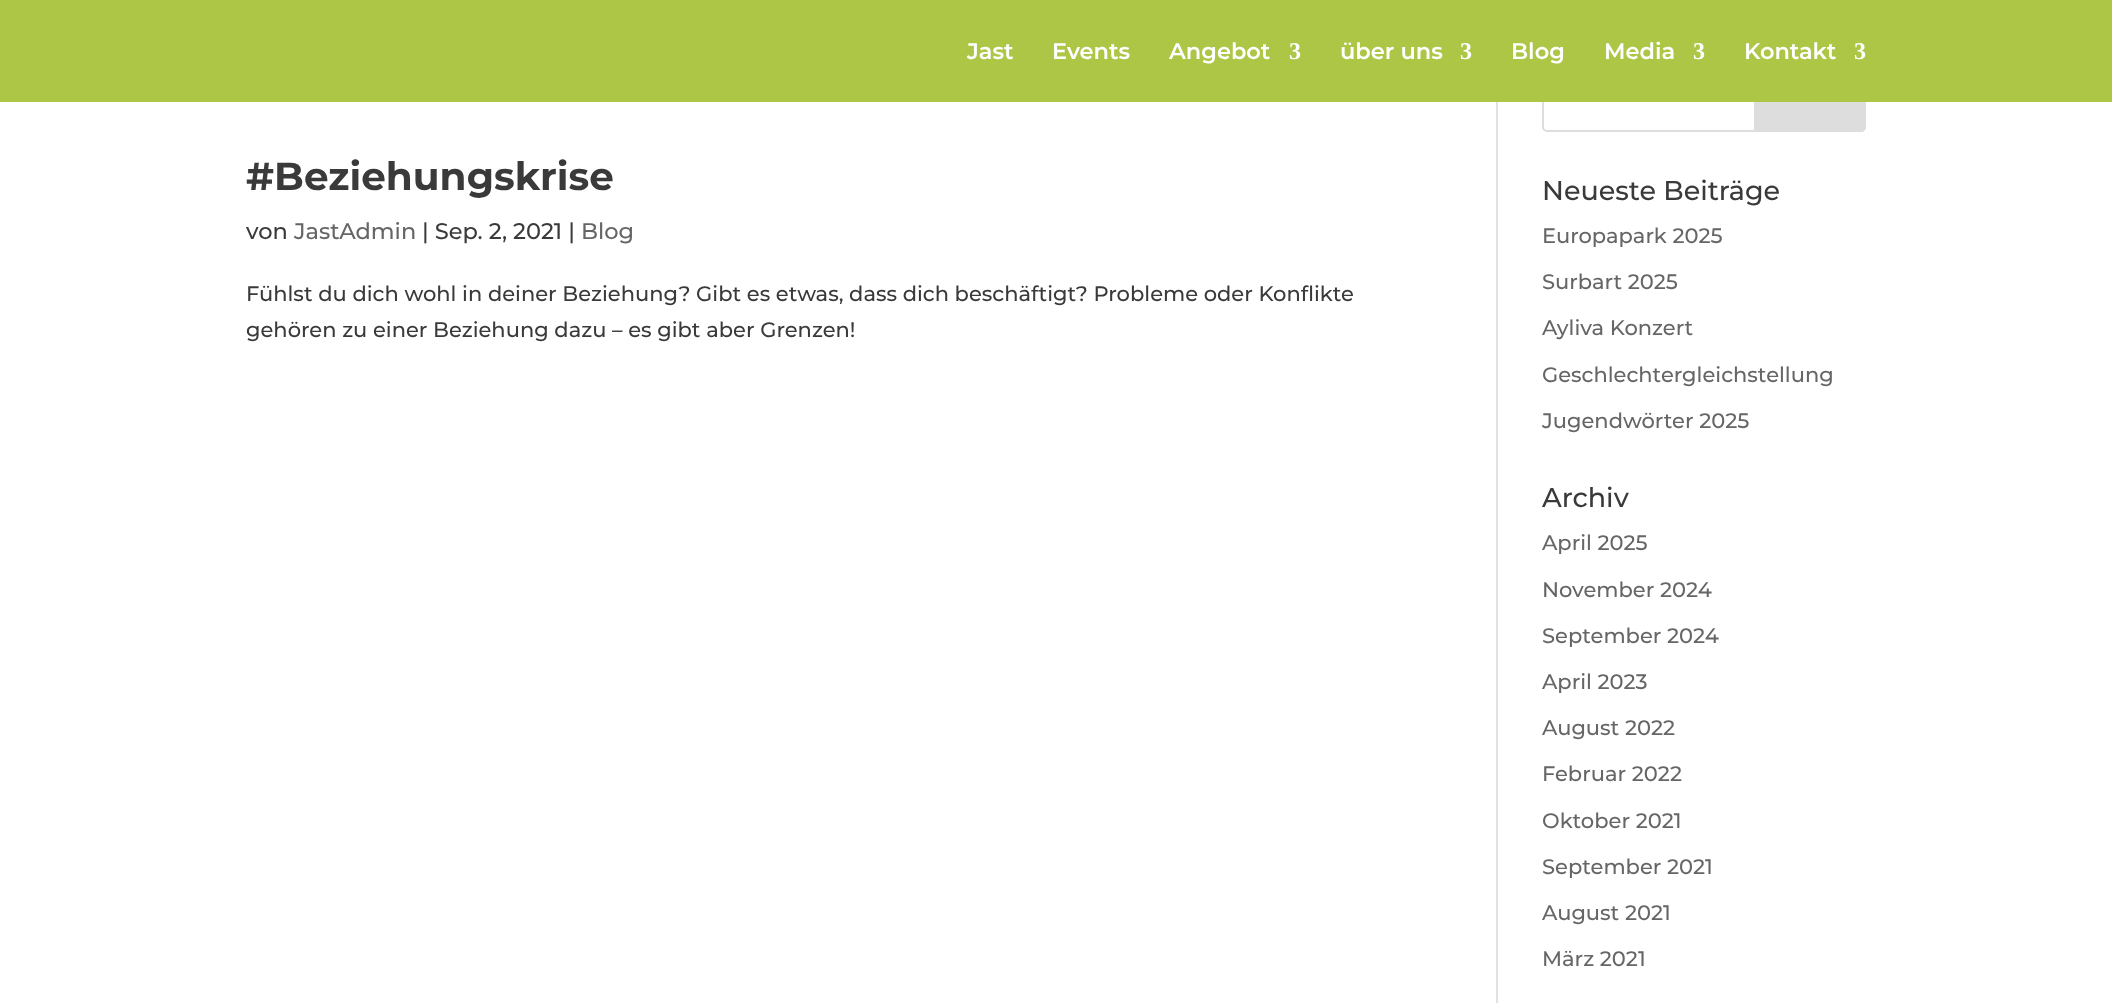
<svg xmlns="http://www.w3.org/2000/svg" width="2112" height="1003">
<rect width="100%" height="100%" fill="#fff"/>
<rect x="1543" y="73" width="322" height="58" rx="4" fill="none" stroke="#ddd" stroke-width="2"/>
<path d="M1755 73h106c2 0 4 2 4 4v50c0 2-2 4-4 4h-106z" fill="#ddd" stroke="#ddd" stroke-width="2"/>
<rect width="2112" height="102" fill="#adc646"/>
<text x="967" y="59" style="font-family:'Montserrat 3';font-size:22.5px;font-weight:100;fill:#fff">Jast</text>
<text x="1052" y="59" style="font-family:'Montserrat 3';font-size:22.5px;font-weight:100;fill:#fff">Events</text>
<text x="1169" y="59" style="font-family:'Montserrat 3';font-size:22.5px;font-weight:100;fill:#fff">Angebot</text>
<text x="1289" y="59" style="font-family:Liberation Serif;font-size:24px;font-weight:bold;fill:#fff">3</text>
<text x="1340" y="59" style="font-family:'Montserrat 3';font-size:22.5px;font-weight:100;fill:#fff">über uns</text>
<text x="1460" y="59" style="font-family:Liberation Serif;font-size:24px;font-weight:bold;fill:#fff">3</text>
<text x="1511" y="59" style="font-family:'Montserrat 3';font-size:22.5px;font-weight:100;fill:#fff">Blog</text>
<text x="1604" y="59" style="font-family:'Montserrat 3';font-size:22.5px;font-weight:100;fill:#fff">Media</text>
<text x="1693" y="59" style="font-family:Liberation Serif;font-size:24px;font-weight:bold;fill:#fff">3</text>
<text x="1744" y="59" style="font-family:'Montserrat 3';font-size:22.5px;font-weight:100;fill:#fff">Kontakt</text>
<text x="1854" y="59" style="font-family:Liberation Serif;font-size:24px;font-weight:bold;fill:#fff">3</text>
<rect x="1496" y="102" width="2" height="901" fill="#e2e2e2"/>
<text x="246" y="190" style="font-family:Montserrat;font-size:39px;font-weight:100;fill:#3a3a3a">#Beziehungskrise</text>
<text x="246" y="239" style="font-family:'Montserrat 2';font-size:22.5px;font-weight:100;fill:#3a3a3a">von</text>
<text x="294" y="239" style="font-family:'Montserrat 2';font-size:22.5px;font-weight:100;fill:#666">JastAdmin</text>
<text x="422" y="239" style="font-family:'Montserrat 2';font-size:22.5px;font-weight:100;fill:#3a3a3a">| Sep. 2, 2021 |</text>
<text x="581" y="239" style="font-family:'Montserrat 2';font-size:22.5px;font-weight:100;fill:#666">Blog</text>
<text x="246" y="301" style="font-family:'Montserrat 2';font-size:21px;font-weight:100;fill:#3a3a3a">Fühlst du dich wohl in deiner Beziehung? Gibt es etwas, dass dich beschäftigt? Probleme oder Konflikte</text>
<text x="246" y="337" style="font-family:'Montserrat 2';font-size:21px;font-weight:100;fill:#3a3a3a">gehören zu einer Beziehung dazu – es gibt aber Grenzen!</text>
<text x="1542" y="200" style="font-family:'Montserrat 2';font-size:27px;font-weight:100;fill:#3a3a3a">Neueste Beiträge</text>
<text x="1542" y="243" style="font-family:'Montserrat 2';font-size:21px;font-weight:100;fill:#666">Europapark 2025</text>
<text x="1542" y="289" style="font-family:'Montserrat 2';font-size:21px;font-weight:100;fill:#666">Surbart 2025</text>
<text x="1542" y="335" style="font-family:'Montserrat 2';font-size:21px;font-weight:100;fill:#666">Ayliva Konzert</text>
<text x="1542" y="382" style="font-family:'Montserrat 2';font-size:21px;font-weight:100;fill:#666">Geschlechtergleichstellung</text>
<text x="1542" y="428" style="font-family:'Montserrat 2';font-size:21px;font-weight:100;fill:#666">Jugendwörter 2025</text>
<text x="1542" y="507" style="font-family:'Montserrat 2';font-size:27px;font-weight:100;fill:#3a3a3a">Archiv</text>
<text x="1542" y="550" style="font-family:'Montserrat 2';font-size:21px;font-weight:100;fill:#666">April 2025</text>
<text x="1542" y="597" style="font-family:'Montserrat 2';font-size:21px;font-weight:100;fill:#666">November 2024</text>
<text x="1542" y="643" style="font-family:'Montserrat 2';font-size:21px;font-weight:100;fill:#666">September 2024</text>
<text x="1542" y="689" style="font-family:'Montserrat 2';font-size:21px;font-weight:100;fill:#666">April 2023</text>
<text x="1542" y="735" style="font-family:'Montserrat 2';font-size:21px;font-weight:100;fill:#666">August 2022</text>
<text x="1542" y="781" style="font-family:'Montserrat 2';font-size:21px;font-weight:100;fill:#666">Februar 2022</text>
<text x="1542" y="828" style="font-family:'Montserrat 2';font-size:21px;font-weight:100;fill:#666">Oktober 2021</text>
<text x="1542" y="874" style="font-family:'Montserrat 2';font-size:21px;font-weight:100;fill:#666">September 2021</text>
<text x="1542" y="920" style="font-family:'Montserrat 2';font-size:21px;font-weight:100;fill:#666">August 2021</text>
<text x="1542" y="966" style="font-family:'Montserrat 2';font-size:21px;font-weight:100;fill:#666">März 2021</text>
</svg>
